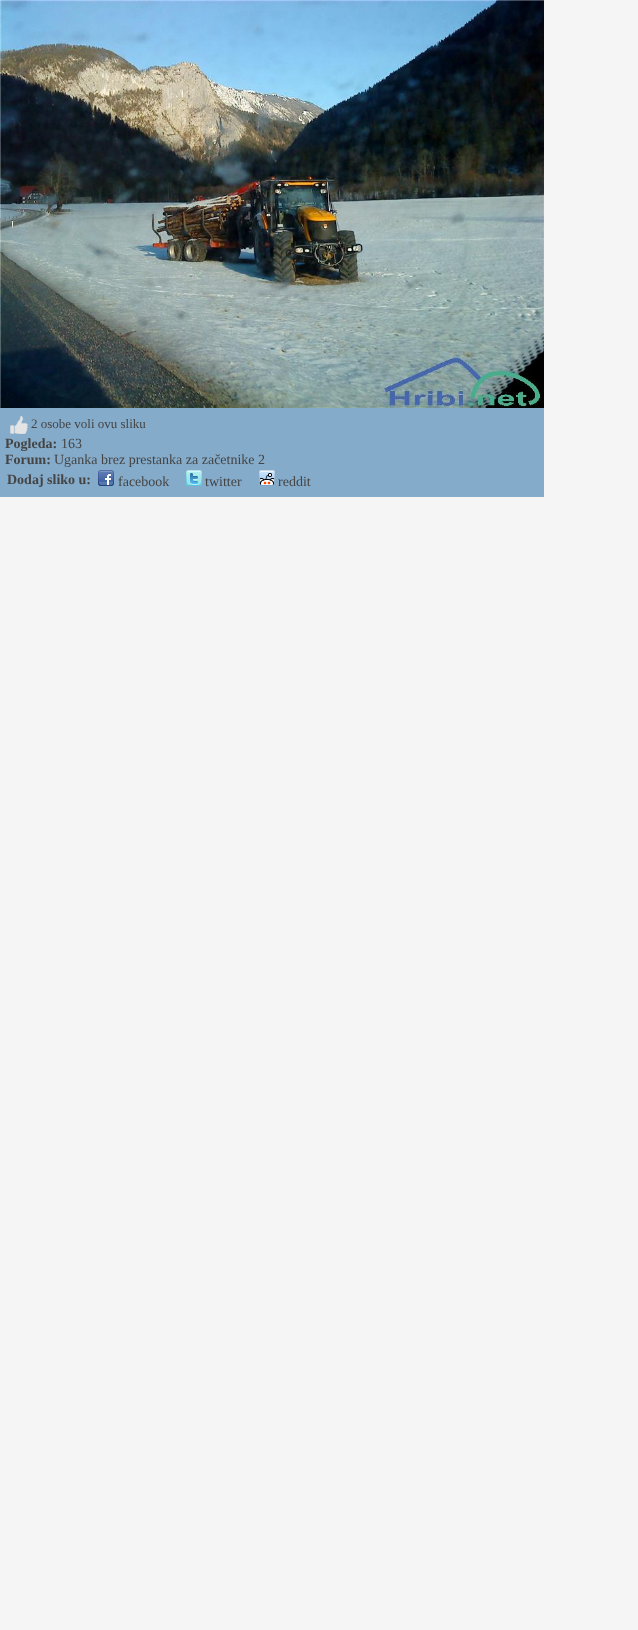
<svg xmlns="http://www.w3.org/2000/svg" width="638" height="1630">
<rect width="100%" height="100%" fill="#f5f5f5"/>
<rect y="408" width="544" height="89" fill="#85abca"/>
<image x="0" y="0" width="544" height="408" href="media/1.png"/>
<image x="10" y="416" width="18" height="18" href="media/2.png"/>
<text x="31" y="428" style="font-family:Liberation Serif;font-size:13px;fill:#444">2 osobe voli ovu sliku</text>
<text x="5" y="448" style="font-family:Liberation Serif;font-size:14px;font-weight:bold;fill:#444">Pogleda:</text>
<text x="61" y="448" style="font-family:Liberation Serif;font-size:14px;fill:#444">163</text>
<text x="5" y="464" style="font-family:Liberation Serif;font-size:14px;font-weight:bold;fill:#444">Forum:</text>
<text x="54" y="464" style="font-family:Liberation Serif;font-size:14px;fill:#444">Uganka brez prestanka za začetnike 2</text>
<text x="7" y="484" style="font-family:Liberation Serif;font-size:14px;font-weight:bold;fill:#444">Dodaj sliko u:</text>
<image x="98" y="470" width="16" height="16" href="media/3.png"/>
<text x="118" y="486" style="font-family:Liberation Serif;font-size:14px;fill:#444">facebook</text>
<image x="186" y="470" width="16" height="16" href="media/4.png"/>
<text x="205" y="486" style="font-family:Liberation Serif;font-size:14px;fill:#444">twitter</text>
<image x="259" y="470" width="16" height="16" href="media/5.png"/>
<text x="278" y="486" style="font-family:Liberation Serif;font-size:14px;fill:#444">reddit</text>
</svg>
